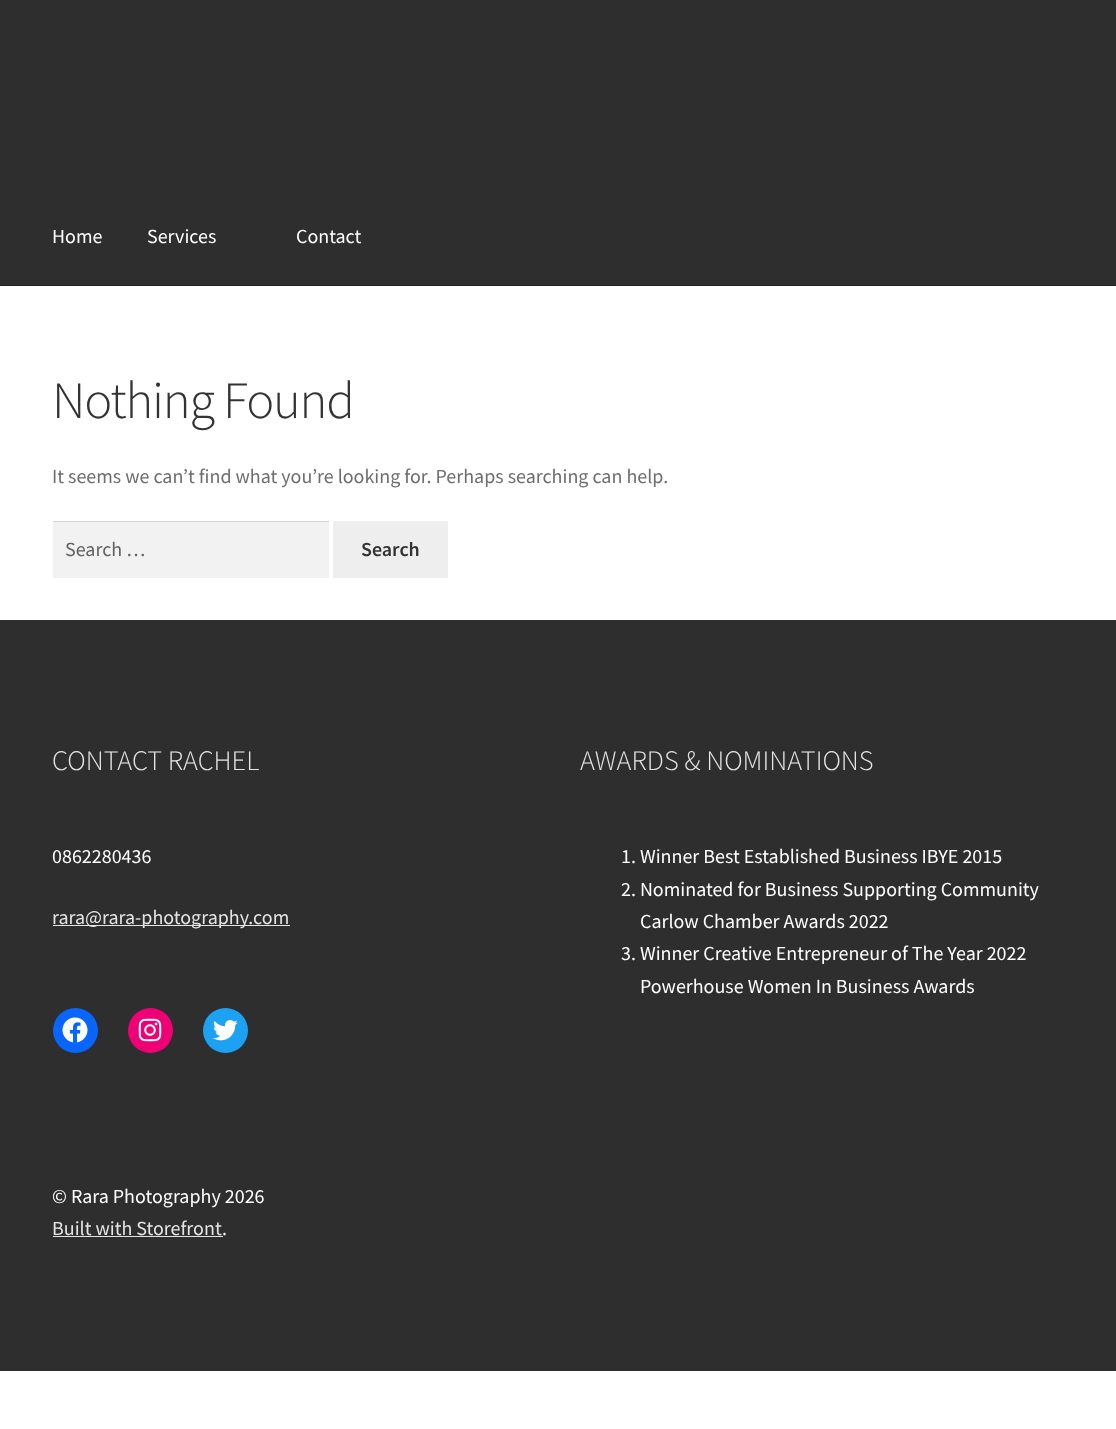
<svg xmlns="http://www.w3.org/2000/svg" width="1116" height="1429">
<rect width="100%" height="100%" fill="#fff"/>
<rect width="1116" height="285" fill="#2e2e2e"/>
<rect y="285" width="1116" height="1" fill="#1f1f1f"/>
<text x="52" y="243" style="font-family:Source Sans Pro;font-size:20px;fill:#fff">Home</text>
<text x="147" y="243" style="font-family:Source Sans Pro;font-size:20px;fill:#fff">Services</text>
<text x="296" y="243" style="font-family:Source Sans Pro;font-size:20px;fill:#fff">Contact</text>
<text x="52" y="418" style="font-family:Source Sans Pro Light;font-size:52.5px;font-weight:300;letter-spacing:-1.25px;fill:#333">Nothing Found</text>
<text x="52" y="483" style="font-family:Source Sans Pro;font-size:20px;fill:#6d6d6d">It seems we can’t find what you’re looking for. Perhaps searching can help.</text>
<rect x="53" y="522" width="276" height="56" fill="#f2f2f2"/>
<rect x="53" y="521" width="276" height="1" fill="#d4d4d4"/>
<text x="65" y="556" style="font-family:Source Sans Pro;font-size:20px;fill:#616161">Search …</text>
<rect x="333" y="521" width="115" height="57" fill="#eee"/>
<text x="361" y="556" style="font-family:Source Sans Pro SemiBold;font-size:20px;font-weight:600;fill:#333">Search</text>
<rect y="620" width="1116" height="751" fill="#2e2e2e"/>
<text x="52" y="770" style="font-family:Source Sans Pro Light;font-size:28.25px;font-weight:300;fill:#e5e5e5">CONTACT RACHEL</text>
<text x="52" y="863" style="font-family:Source Sans Pro;font-size:20px;fill:#fff">0862280436</text>
<rect x="53" y="925" width="237" height="1" fill="#e5e5e5"/>
<text x="52" y="924" style="font-family:Source Sans Pro;font-size:20px;fill:#e5e5e5">rara@rara-photography.com</text>
<circle cx="75.5" cy="1030.5" r="22.5" fill="#0866ff"/>
<image x="62" y="1017" width="26" height="26" href="media/1.png"/>
<circle cx="150.5" cy="1030.5" r="22.5" fill="#f00075"/>
<image x="138" y="1018" width="24" height="24" href="media/2.png"/>
<circle cx="225.5" cy="1030.5" r="22.5" fill="#1da1f2"/>
<image x="213" y="1020" width="25" height="21" href="media/3.png"/>
<text x="580" y="770" style="font-family:Source Sans Pro Light;font-size:28.25px;font-weight:300;fill:#e5e5e5">AWARDS &amp; NOMINATIONS</text>
<text x="621" y="863" style="font-family:Source Sans Pro;font-size:20px;fill:#fff">1. Winner Best Established Business IBYE 2015</text>
<text x="621" y="896" style="font-family:Source Sans Pro;font-size:20px;fill:#fff">2. Nominated for Business Supporting Community</text>
<text x="640" y="928" style="font-family:Source Sans Pro;font-size:20px;fill:#fff">Carlow Chamber Awards 2022</text>
<text x="621" y="960" style="font-family:Source Sans Pro;font-size:20px;fill:#fff">3. Winner Creative Entrepreneur of The Year 2022</text>
<text x="640" y="993" style="font-family:Source Sans Pro;font-size:20px;fill:#fff">Powerhouse Women In Business Awards</text>
<text x="52" y="1203" style="font-family:Source Sans Pro;font-size:20px;fill:#fff">© Rara Photography 2026</text>
<text x="52" y="1235" style="font-family:Source Sans Pro;font-size:20px;fill:#e5e5e5">Built with Storefront</text>
<rect x="53" y="1236" width="170" height="1" fill="#e5e5e5"/>
<text x="222" y="1235" style="font-family:Source Sans Pro;font-size:20px;fill:#fff">.</text>
</svg>
